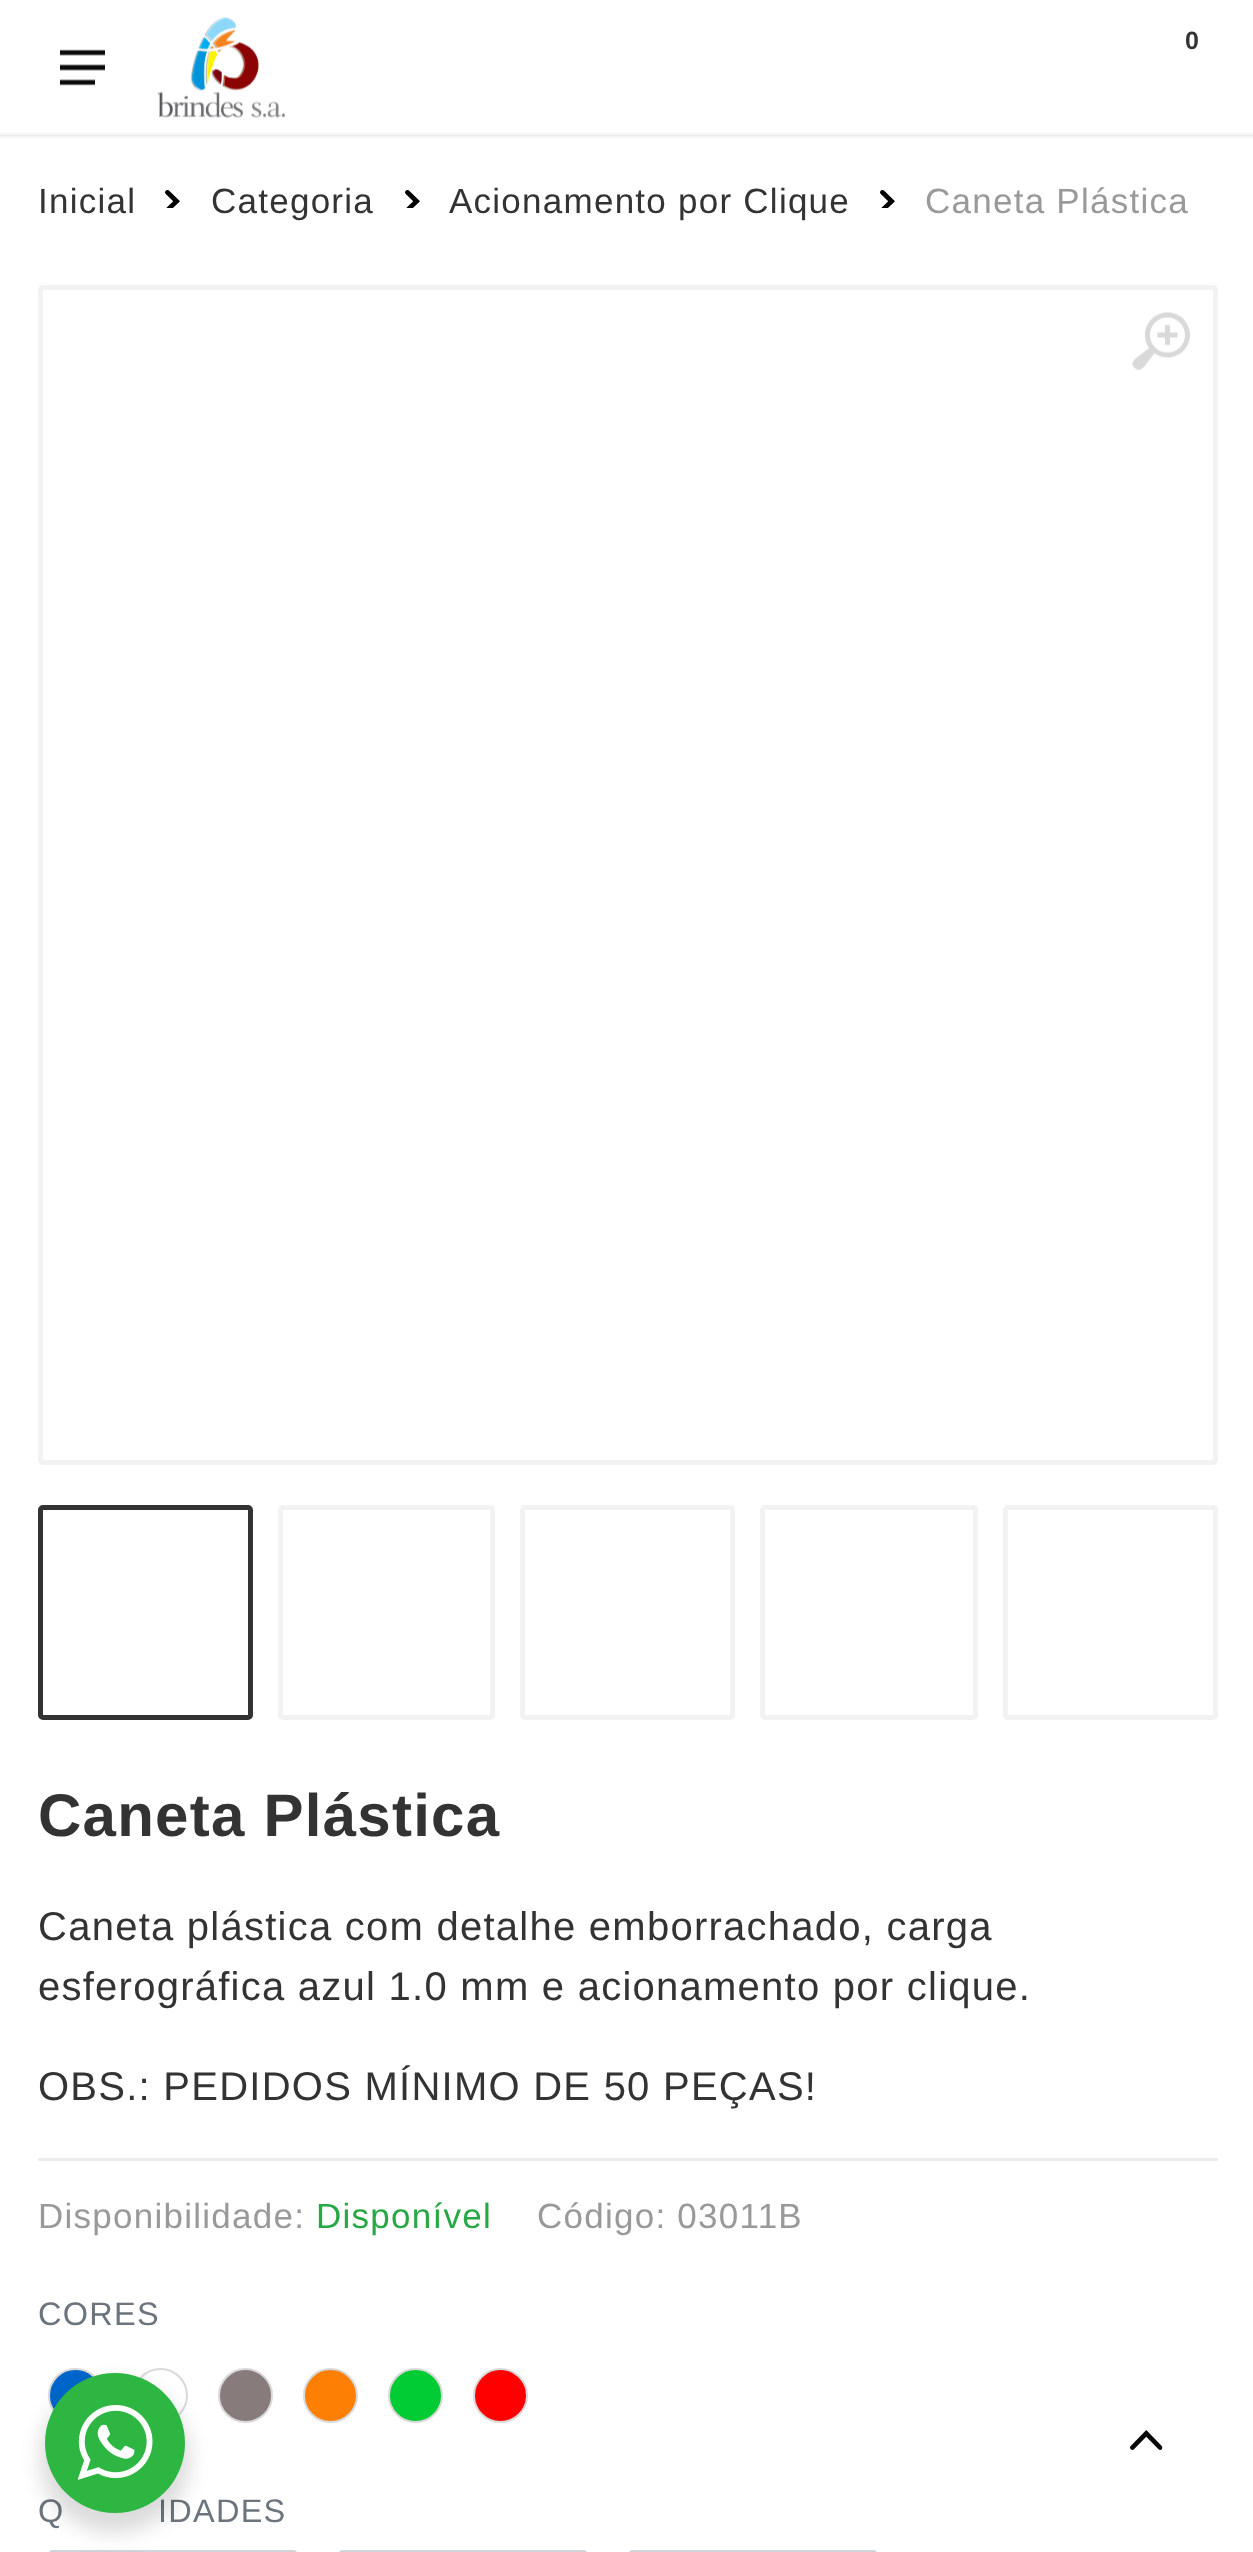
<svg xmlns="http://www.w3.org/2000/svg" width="1253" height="2552">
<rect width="100%" height="100%" fill="#fff"/>
<rect y="133" width="1253" height="2" fill="#f5f5f5"/>
<rect y="136" width="1253" height="2" fill="#f5f5f5"/>
<rect y="135" width="1253" height="1" fill="#ebebeb"/>
<image x="157" y="17" width="128" height="101" href="media/1.png"/>
<text x="1185" y="49" style="font-family:Liberation Sans;font-size:25px;font-weight:bold;letter-spacing:1.25px;fill:#333">0</text>
<image x="60" y="49" width="45" height="37" href="media/2.png"/>
<text x="38" y="213" style="font-family:Liberation Sans;font-size:35px;letter-spacing:1.25px;fill:#333">Inicial</text>
<image x="165" y="190" width="15" height="18" href="media/3.png"/>
<text x="211" y="213" style="font-family:Liberation Sans;font-size:35px;letter-spacing:1.25px;fill:#333">Categoria</text>
<image x="405" y="190" width="15" height="18" href="media/4.png"/>
<text x="449" y="213" style="font-family:Liberation Sans;font-size:35px;letter-spacing:1.25px;fill:#333">Acionamento por Clique</text>
<image x="880" y="190" width="15" height="18" href="media/4.png"/>
<text x="925" y="213" style="font-family:Liberation Sans;font-size:35px;letter-spacing:1.25px;fill:#999">Caneta Plástica</text>
<rect x="40.5" y="287.5" width="1175" height="1175" rx="2.5" fill="none" stroke="#f2f2f2" stroke-width="5"/>
<image x="1132" y="312" width="58" height="59" href="media/5.png"/>
<rect x="40.5" y="1507.5" width="210" height="210" rx="2.5" fill="none" stroke="#333" stroke-width="5"/>
<rect x="280.5" y="1507.5" width="212" height="210" rx="2.5" fill="none" stroke="#f2f2f2" stroke-width="5"/>
<rect x="522.5" y="1507.5" width="210" height="210" rx="2.5" fill="none" stroke="#f2f2f2" stroke-width="5"/>
<rect x="762.5" y="1507.5" width="213" height="210" rx="2.5" fill="none" stroke="#f2f2f2" stroke-width="5"/>
<rect x="1005.5" y="1507.5" width="210" height="210" rx="2.5" fill="none" stroke="#f2f2f2" stroke-width="5"/>
<text x="38" y="1836" style="font-family:Liberation Sans;font-size:60px;font-weight:bold;letter-spacing:1.25px;fill:#333">Caneta Plástica</text>
<text x="38" y="1940" style="font-family:Liberation Sans;font-size:40px;letter-spacing:1.25px;fill:#333">Caneta plástica com detalhe emborrachado, carga</text>
<text x="38" y="2000" style="font-family:Liberation Sans;font-size:40px;letter-spacing:1.25px;fill:#333">esferográfica azul 1.0 mm e acionamento por clique.</text>
<text x="38" y="2100" style="font-family:Liberation Sans;font-size:40px;letter-spacing:1.25px;fill:#333">OBS.: PEDIDOS MÍNIMO DE 50 PEÇAS!</text>
<rect x="38" y="2158" width="1180" height="3" fill="#ebebeb"/>
<text x="38" y="2228" style="font-family:Liberation Sans;font-size:35px;letter-spacing:1.25px;fill:#999">Disponibilidade:</text>
<text x="316" y="2228" style="font-family:Liberation Sans;font-size:35px;letter-spacing:1.25px;fill:#28a745">Disponível</text>
<text x="537" y="2228" style="font-family:Liberation Sans;font-size:35px;letter-spacing:1.25px;fill:#999">Código: 03011B</text>
<text x="38" y="2325" style="font-family:Liberation Sans;font-size:32.5px;letter-spacing:1.25px;fill:#6c757d">CORES</text>
<circle cx="75.5" cy="2395.5" r="26.5" fill="#0066cb" stroke="#d9d9d9" stroke-width="2"/>
<circle cx="160.5" cy="2395.5" r="26.5" fill="none" stroke="#d9d9d9" stroke-width="2"/>
<circle cx="245.5" cy="2395.5" r="26.5" fill="#877b7b" stroke="#d9d9d9" stroke-width="2"/>
<circle cx="330.5" cy="2395.5" r="26.5" fill="#fd7f04" stroke="#d9d9d9" stroke-width="2"/>
<circle cx="415.5" cy="2395.5" r="26.5" fill="#01cc34" stroke="#d9d9d9" stroke-width="2"/>
<circle cx="500.5" cy="2395.5" r="26.5" fill="#fe0000" stroke="#d9d9d9" stroke-width="2"/>
<text x="38" y="2522" style="font-family:Liberation Sans;font-size:32.5px;letter-spacing:1.25px;fill:#6c757d">Q</text>
<text x="158" y="2522" style="font-family:Liberation Sans;font-size:32.5px;letter-spacing:1.25px;fill:#6c757d">IDADES</text>
<rect x="49.5" y="2551.5" width="247" height="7" rx="3.5" fill="none" stroke="#ced4da" stroke-width="3"/>
<rect x="339.5" y="2551.5" width="247" height="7" rx="3.5" fill="none" stroke="#ced4da" stroke-width="3"/>
<rect x="629.5" y="2551.5" width="247" height="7" rx="3.5" fill="none" stroke="#ced4da" stroke-width="3"/>
<image x="1130" y="2430" width="33" height="20" href="media/6.png"/>
<rect x="40" y="2383" width="150" height="150" rx="75" fill="#00000024" filter="blur(10px)"/>
<circle cx="115" cy="2443" r="70" fill="#2db742"/>
<image x="78" y="2405" width="75" height="75" href="media/7.png"/>
</svg>
